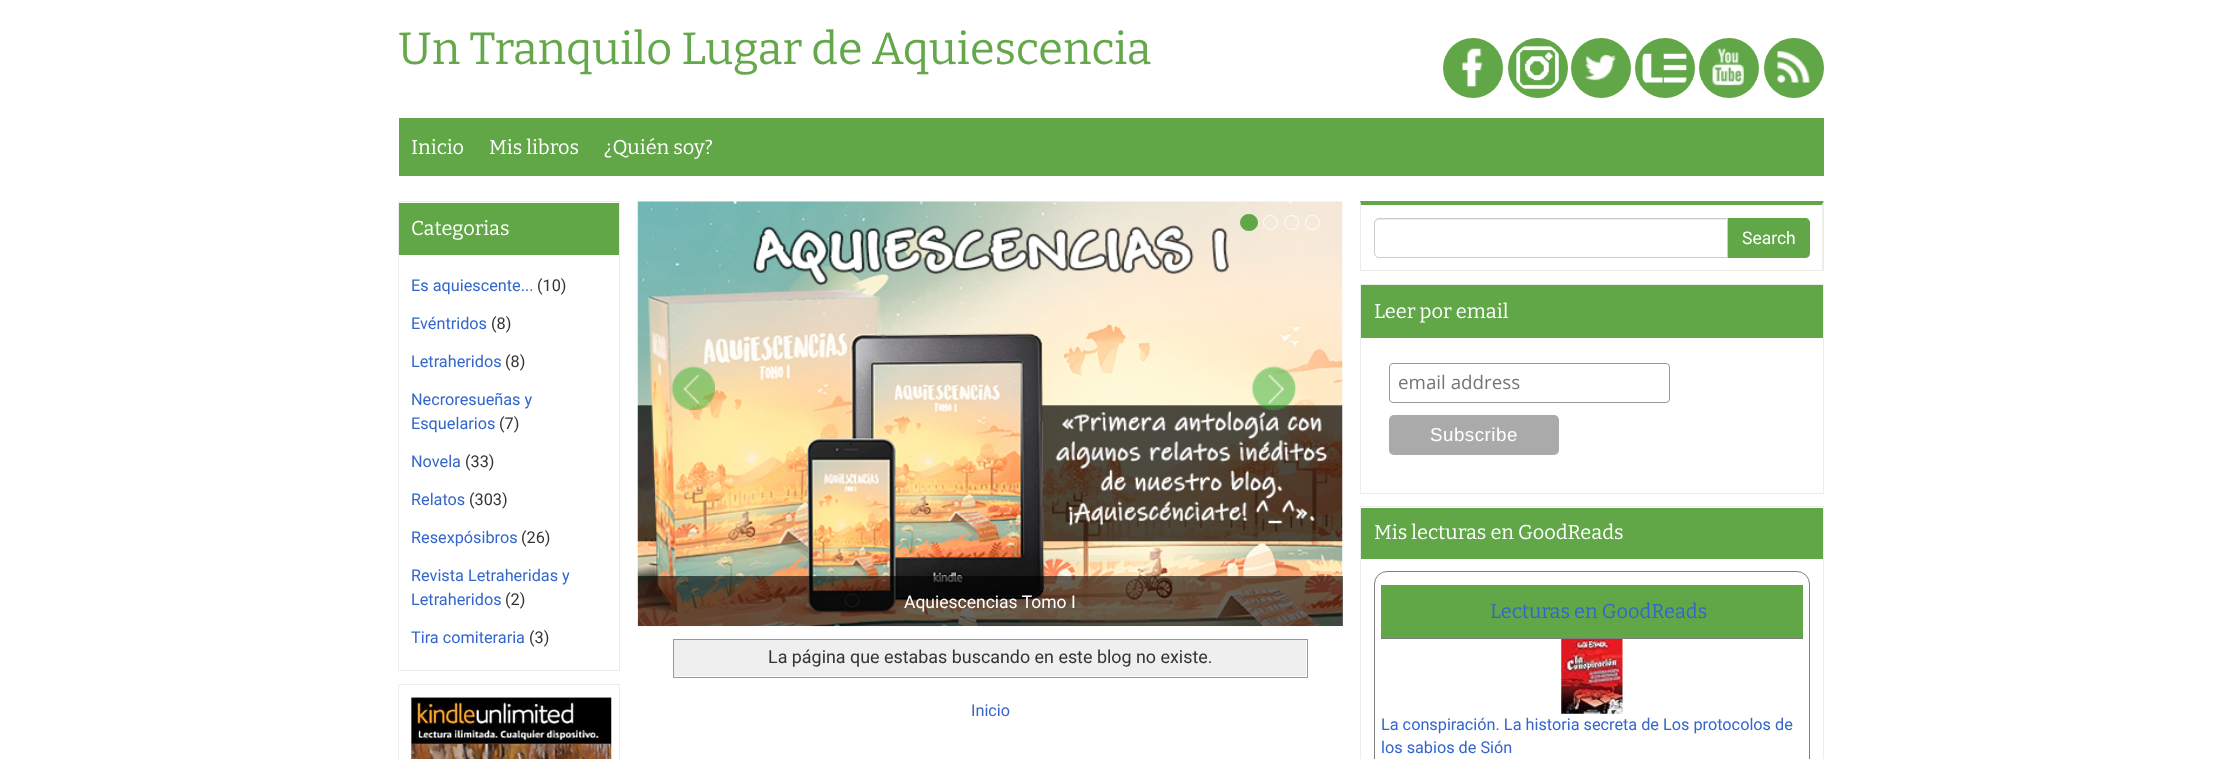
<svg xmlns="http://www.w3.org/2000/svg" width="2221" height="759">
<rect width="100%" height="100%" fill="#fff"/>
<text x="398" y="64" style="font-family:Bitter;font-size:45px;font-weight:100;fill:#65a84c">Un Tranquilo Lugar de Aquiescencia</text>
<circle cx="1473" cy="68" r="30" fill="#61a647"/>
<circle cx="1538" cy="68" r="30" fill="#61a647"/>
<circle cx="1601" cy="68" r="30" fill="#61a647"/>
<circle cx="1665" cy="68" r="30" fill="#61a647"/>
<circle cx="1729" cy="68" r="30" fill="#61a647"/>
<circle cx="1794" cy="68" r="30" fill="#61a647"/>
<image x="1462" y="48" width="21" height="39" href="media/1.png"/>
<image x="1516" y="46" width="43" height="43" href="media/2.png"/>
<image x="1585" y="54" width="32" height="27" href="media/3.png"/>
<image x="1642" y="53" width="45" height="30" href="media/4.png"/>
<image x="1712" y="48" width="32" height="38" href="media/5.png"/>
<image x="1777" y="51" width="34" height="32" href="media/6.png"/>
<rect x="399" y="118" width="1425" height="58" fill="#61a647"/>
<text x="411" y="154" style="font-family:Bitter;font-size:20px;font-weight:100;fill:#fff">Inicio</text>
<text x="489" y="154" style="font-family:Bitter;font-size:20px;font-weight:100;fill:#fff">Mis libros</text>
<text x="604" y="154" style="font-family:Bitter;font-size:20px;font-weight:100;fill:#fff">¿Quién soy?</text>
<rect x="398.5" y="201.5" width="221" height="469" fill="none" stroke="#ececec"/>
<rect x="399" y="203" width="220" height="52" fill="#61a647"/>
<text x="411" y="235" style="font-family:Bitter;font-size:20px;font-weight:100;fill:#fff">Categorias</text>
<text x="411" y="291" style="font-family:Roboto;font-size:16.25px;fill:#36c">Es aquiescente...</text>
<text x="537" y="291" style="font-family:Roboto;font-size:16.25px;fill:#333">(10)</text>
<text x="411" y="329" style="font-family:Roboto;font-size:16.25px;fill:#36c">Evéntridos</text>
<text x="491" y="329" style="font-family:Roboto;font-size:16.25px;fill:#333">(8)</text>
<text x="411" y="367" style="font-family:Roboto;font-size:16.25px;fill:#36c">Letraheridos</text>
<text x="505" y="367" style="font-family:Roboto;font-size:16.25px;fill:#333">(8)</text>
<text x="411" y="405" style="font-family:Roboto;font-size:16.25px;fill:#36c">Necroresueñas y</text>
<text x="411" y="429" style="font-family:Roboto;font-size:16.25px;fill:#36c">Esquelarios</text>
<text x="499" y="429" style="font-family:Roboto;font-size:16.25px;fill:#333">(7)</text>
<text x="411" y="467" style="font-family:Roboto;font-size:16.25px;fill:#36c">Novela</text>
<text x="465" y="467" style="font-family:Roboto;font-size:16.25px;fill:#333">(33)</text>
<text x="411" y="505" style="font-family:Roboto;font-size:16.25px;fill:#36c">Relatos</text>
<text x="469" y="505" style="font-family:Roboto;font-size:16.25px;fill:#333">(303)</text>
<text x="411" y="543" style="font-family:Roboto;font-size:16.25px;fill:#36c">Resexpósibros</text>
<text x="521" y="543" style="font-family:Roboto;font-size:16.25px;fill:#333">(26)</text>
<text x="411" y="581" style="font-family:Roboto;font-size:16.25px;fill:#36c">Revista Letraheridas y</text>
<text x="411" y="605" style="font-family:Roboto;font-size:16.25px;fill:#36c">Letraheridos</text>
<text x="505" y="605" style="font-family:Roboto;font-size:16.25px;fill:#333">(2)</text>
<text x="411" y="643" style="font-family:Roboto;font-size:16.25px;fill:#36c">Tira comiteraria</text>
<text x="529" y="643" style="font-family:Roboto;font-size:16.25px;fill:#333">(3)</text>
<rect x="398.5" y="684.5" width="221" height="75" fill="none" stroke="#ececec"/>
<image x="411" y="697" width="201" height="62" href="media/7.png"/>
<image x="637" y="201" width="706" height="426" href="media/10.png"/>
<rect x="1240.5" y="214.5" width="17" height="16" rx="8" fill="#61a647" stroke="#61a647"/>
<circle cx="1270.5" cy="222.5" r="7" fill="none" stroke="#fff"/>
<circle cx="1291.5" cy="222.5" r="7" fill="none" stroke="#fff"/>
<circle cx="1312.5" cy="222.5" r="7" fill="none" stroke="#fff"/>
<image x="671" y="366" width="44" height="44" href="media/8.png"/>
<image x="1252" y="366" width="45" height="44" href="media/9.png"/>
<rect x="638" y="576" width="705" height="50" fill="#00000099"/>
<text x="904" y="608" style="font-family:Roboto;font-size:17.5px;fill:#fff">Aquiescencias Tomo I</text>
<rect x="673.5" y="639.5" width="634" height="38" fill="none" stroke="#999"/>
<rect x="674" y="640" width="632" height="36" fill="#efefef"/>
<text x="768" y="663" style="font-family:Roboto;font-size:17.9px;fill:#333">La página que estabas buscando en este blog no existe.</text>
<text x="971" y="716" style="font-family:Roboto;font-size:16.25px;fill:#36c">Inicio</text>
<path d="M1360 201h464l-2 4h-461z" fill="#61a647"/>
<path d="M1824 201v70l-2-1v-65z" fill="#ececec"/>
<rect x="1360" y="270" width="464" height="1" fill="#ececec"/>
<path d="M1360 271v-70l1 4v65z" fill="#ececec"/>
<path d="M1726 218h79c3 0 5 2 5 5v30c0 3-2 5-5 5h-79z" fill="#61a647"/>
<path d="M1379 218h349v40h-349c-3 0-5-2-5-5v-30c0-3 2-5 5-5z" fill="#fff"/>
<path d="M1379 220h347v-1h-347c-3 0-4 2-4 5c0-2 2-4 4-4z" fill="#ececec"/>
<path d="M1379 218.5h348.5v39h-348.5c-2.5 0-4.5-2-4.5-4.5v-30c0-2.5 2-4.5 4.5-4.5z" fill="none" stroke="#ccc"/>
<text x="1742" y="244" style="font-family:Roboto;font-size:17.5px;fill:#fff">Search</text>
<rect x="1360.5" y="284.5" width="463" height="209" fill="none" stroke="#ececec"/>
<rect x="1361" y="285" width="462" height="53" fill="#61a647"/>
<text x="1374" y="318" style="font-family:Bitter;font-size:20px;font-weight:100;fill:#fff">Leer por email</text>
<rect x="1389.5" y="363.5" width="280" height="39" rx="3.5" fill="none" stroke="#999"/>
<text x="1398" y="389" style="font-family:Open Sans;font-size:18.75px;fill:#757575">email address</text>
<rect x="1389" y="415" width="170" height="40" rx="5" fill="#aaa"/>
<text x="1430" y="441" style="font-family:Liberation Sans;font-size:18.75px;letter-spacing:0.5px;fill:#fff">Subscribe</text>
<rect x="1360.5" y="506.5" width="463" height="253" fill="none" stroke="#ececec"/>
<rect x="1361" y="508" width="462" height="51" fill="#61a647"/>
<text x="1374" y="539" style="font-family:Bitter;font-size:20px;font-weight:100;fill:#fff">Mis lecturas en GoodReads</text>
<rect x="1374.5" y="571.5" width="435" height="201" rx="12.5" fill="none" stroke="#808080"/>
<rect x="1381" y="585" width="422" height="53" fill="#61a647"/>
<rect x="1381" y="638" width="422" height="1" fill="#808080"/>
<text x="1490" y="618" style="font-family:Bitter;font-size:20px;font-weight:100;fill:#36c">Lecturas en GoodReads</text>
<image x="1561" y="638" width="62" height="76" href="media/11.png"/>
<text x="1381" y="730" style="font-family:Roboto;font-size:16.25px;fill:#36c">La conspiración. La historia secreta de Los protocolos de</text>
<text x="1381" y="753" style="font-family:Roboto;font-size:16.25px;fill:#36c">los sabios de Sión</text>
</svg>
